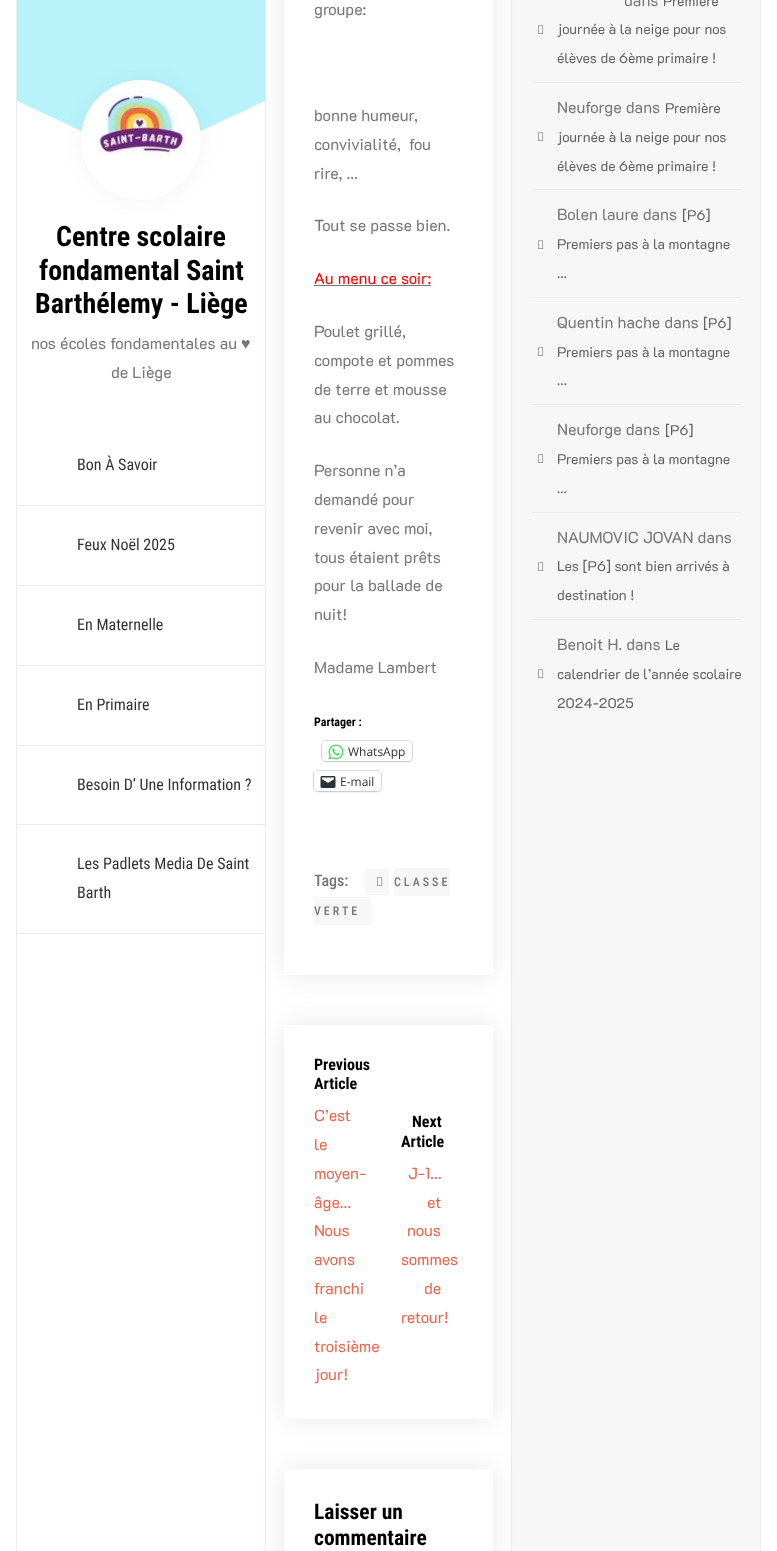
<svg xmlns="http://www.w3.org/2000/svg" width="777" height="1551">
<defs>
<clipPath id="clip1"><path d="M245 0h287v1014h-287zm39-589h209v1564h-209z" clip-rule="evenodd"/></clipPath>
<clipPath id="clip2"><path d="M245 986h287v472h-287zm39 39h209v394h-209z" clip-rule="evenodd"/></clipPath>
<clipPath id="clip3"><path d="M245 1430h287v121h-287zm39 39h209v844h-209z" clip-rule="evenodd"/></clipPath>
<clipPath id="clip4"><rect x="17" width="248" height="160"/></clipPath>
</defs>
<rect width="100%" height="100%" fill="#fff"/>
<rect x="511.5" y="-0.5" width="249" height="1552" fill="none" stroke="#ebebeb"/>
<rect x="512" width="248" height="1551" fill="#f7f7f7"/>
<g clip-path="url(#clip1)">
<rect x="284" y="-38" width="209" height="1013" fill="#00000017" filter="blur(12.5px)"/>
</g>
<g clip-path="url(#clip2)">
<rect x="284" y="1025" width="209" height="394" fill="#00000017" filter="blur(12.5px)"/>
</g>
<g clip-path="url(#clip3)">
<rect x="284" y="1469" width="209" height="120" fill="#00000017" filter="blur(12.5px)"/>
</g>
<rect x="265" width="1" height="1551" fill="#ebebeb"/>
<rect x="16" width="1" height="1551" fill="#ebebeb"/>
<rect x="17" width="248" height="132" fill="#b8f3fb"/>
<g clip-path="url(#clip4)">
<path d="M15 100l225 105l-47 101l-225-104z" fill="#fff"/>
<path d="M42 205l225-105l47 102l-225 104z" fill="#fff"/>
</g>
<rect x="81" y="80" width="120" height="120" rx="60" fill="#0000000d" filter="blur(10px)"/>
<circle cx="141" cy="140" r="58" fill="#fff" stroke="#fff" stroke-width="4"/>
<image x="98" y="89" width="89" height="68" href="media/1.png"/>
<text x="56" y="246" style="font-family:Roboto Condensed;font-size:28px;font-weight:bold;fill:#000">Centre scolaire</text>
<text x="39" y="280" style="font-family:Roboto Condensed;font-size:28px;font-weight:bold;fill:#000">fondamental Saint</text>
<text x="35" y="313" style="font-family:Roboto Condensed;font-size:28px;font-weight:bold;fill:#000">Barthélemy - Liège</text>
<text x="31" y="349" style="font-family:'K2D';font-size:16px;fill:#777">nos écoles fondamentales au</text>
<text x="241" y="349" style="font-family:Liberation Sans;font-size:16px;fill:#777">♥</text>
<text x="111" y="378" style="font-family:'K2D';font-size:16px;fill:#777">de Liège</text>
<rect x="17" y="505" width="248" height="1" fill="#ebebeb"/>
<text x="77" y="470" style="font-family:Roboto Condensed;font-size:16px;fill:#333">Bon À Savoir</text>
<rect x="17" y="585" width="248" height="1" fill="#ebebeb"/>
<text x="77" y="550" style="font-family:Roboto Condensed;font-size:16px;fill:#333">Feux Noël 2025</text>
<rect x="17" y="665" width="248" height="1" fill="#ebebeb"/>
<text x="77" y="630" style="font-family:Roboto Condensed;font-size:16px;fill:#333">En Maternelle</text>
<rect x="17" y="745" width="248" height="1" fill="#ebebeb"/>
<text x="77" y="710" style="font-family:Roboto Condensed;font-size:16px;fill:#333">En Primaire</text>
<rect x="17" y="824" width="248" height="1" fill="#ebebeb"/>
<text x="77" y="790" style="font-family:Roboto Condensed;font-size:16px;fill:#333">Besoin D’ Une Information ?</text>
<rect x="17" y="933" width="248" height="1" fill="#ebebeb"/>
<text x="77" y="869" style="font-family:Roboto Condensed;font-size:16px;fill:#333">Les Padlets Media De Saint</text>
<text x="77" y="898" style="font-family:Roboto Condensed;font-size:16px;fill:#333">Barth</text>
<text x="314" y="15" style="font-family:'K2D';font-size:16px;fill:#777">groupe:</text>
<text x="314" y="121" style="font-family:'K2D';font-size:16px;fill:#777">bonne humeur,</text>
<text x="314" y="150" style="font-family:'K2D';font-size:16px;fill:#777" xml:space="preserve">convivialité,  fou</text>
<text x="314" y="179" style="font-family:'K2D';font-size:16px;fill:#777">rire, …</text>
<text x="314" y="231" style="font-family:'K2D';font-size:16px;fill:#777">Tout se passe bien.</text>
<text x="314" y="284" style="font-family:'K2D';font-size:16px;fill:#f00">Au menu ce soir:</text>
<rect x="314" y="285" width="117" height="1" fill="#777"/>
<text x="314" y="337" style="font-family:'K2D';font-size:16px;fill:#777">Poulet grillé,</text>
<text x="314" y="366" style="font-family:'K2D';font-size:16px;fill:#777">compote et pommes</text>
<text x="314" y="395" style="font-family:'K2D';font-size:16px;fill:#777">de terre et mousse</text>
<text x="314" y="423" style="font-family:'K2D';font-size:16px;fill:#777">au chocolat.</text>
<text x="314" y="476" style="font-family:'K2D';font-size:16px;fill:#777">Personne n’a</text>
<text x="314" y="505" style="font-family:'K2D';font-size:16px;fill:#777">demandé pour</text>
<text x="314" y="534" style="font-family:'K2D';font-size:16px;fill:#777">revenir avec moi,</text>
<text x="314" y="563" style="font-family:'K2D';font-size:16px;fill:#777">tous étaient prêts</text>
<text x="314" y="591" style="font-family:'K2D';font-size:16px;fill:#777">pour la ballade de</text>
<text x="314" y="620" style="font-family:'K2D';font-size:16px;fill:#777">nuit!</text>
<text x="314" y="673" style="font-family:'K2D';font-size:16px;fill:#777">Madame Lambert</text>
<text x="314" y="726" style="font-family:Roboto Condensed;font-size:12px;font-weight:bold;fill:#000">Partager :</text>
<rect x="321.5" y="740.5" width="91" height="21" rx="4.5" fill="none" stroke="#e0e0e0"/>
<rect x="322" y="742" width="90" height="20" rx="4" fill="#0000001f" filter="blur(1px)"/>
<rect x="322" y="741" width="90" height="20" rx="4" fill="#fff"/>
<image x="328" y="744" width="16" height="16" href="media/2.png"/>
<text x="348" y="756" style="font-family:Open Sans;font-size:12px;fill:#2c3338">WhatsApp</text>
<rect x="313.5" y="770.5" width="68" height="21" rx="4.5" fill="none" stroke="#e0e0e0"/>
<rect x="314" y="772" width="67" height="20" rx="4" fill="#0000001f" filter="blur(1px)"/>
<rect x="314" y="771" width="67" height="20" rx="4" fill="#fff"/>
<image x="320" y="776" width="16" height="12" href="media/3.png"/>
<text x="340" y="786" style="font-family:Open Sans;font-size:12px;fill:#2c3338">E-mail</text>
<text x="314" y="886" style="font-family:Roboto Condensed;font-size:16px;font-weight:500;fill:#777">Tags:</text>
<path d="M367 869h22v26h-22c-1.5 0-3-1.5-3-3v-20c0-1.5 1.5-3 3-3z" fill="#f7f7f7"/>
<rect x="394" y="868" width="56" height="28" fill="#f7f7f7"/>
<path d="M314 897h55c1.5 0 3 1.5 3 3v22c0 1.5-1.5 3-3 3h-55z" fill="#f7f7f7"/>
<image x="377" y="877" width="6" height="9" href="media/4.png"/>
<text x="394" y="886" style="font-family:Roboto Condensed;font-size:12px;font-weight:500;letter-spacing:3px;fill:#777">CLASSE</text>
<text x="314" y="915" style="font-family:Roboto Condensed;font-size:12px;font-weight:500;letter-spacing:3px;fill:#777">VERTE</text>
<text x="314" y="1070" style="font-family:Roboto Condensed;font-size:16px;font-weight:bold;fill:#000">Previous</text>
<text x="314" y="1089" style="font-family:Roboto Condensed;font-size:16px;font-weight:bold;fill:#000">Article</text>
<text x="314" y="1121" style="font-family:'K2D';font-size:16px;fill:#ee654d">C’est</text>
<text x="314" y="1150" style="font-family:'K2D';font-size:16px;fill:#ee654d">le</text>
<text x="314" y="1179" style="font-family:'K2D';font-size:16px;fill:#ee654d">moyen-</text>
<text x="314" y="1208" style="font-family:'K2D';font-size:16px;fill:#ee654d">âge…</text>
<text x="314" y="1236" style="font-family:'K2D';font-size:16px;fill:#ee654d">Nous</text>
<text x="314" y="1265" style="font-family:'K2D';font-size:16px;fill:#ee654d">avons</text>
<text x="314" y="1294" style="font-family:'K2D';font-size:16px;fill:#ee654d">franchi</text>
<text x="314" y="1323" style="font-family:'K2D';font-size:16px;fill:#ee654d">le</text>
<text x="314" y="1352" style="font-family:'K2D';font-size:16px;fill:#ee654d">troisième</text>
<text x="314" y="1380" style="font-family:'K2D';font-size:16px;fill:#ee654d">jour!</text>
<text x="412" y="1127" style="font-family:Roboto Condensed;font-size:16px;font-weight:bold;fill:#000">Next</text>
<text x="401" y="1147" style="font-family:Roboto Condensed;font-size:16px;font-weight:bold;fill:#000">Article</text>
<text x="408" y="1179" style="font-family:'K2D';font-size:16px;fill:#ee654d">J-1…</text>
<text x="427" y="1208" style="font-family:'K2D';font-size:16px;fill:#ee654d">et</text>
<text x="407" y="1236" style="font-family:'K2D';font-size:16px;fill:#ee654d">nous</text>
<text x="401" y="1265" style="font-family:'K2D';font-size:16px;fill:#ee654d">sommes</text>
<text x="424" y="1294" style="font-family:'K2D';font-size:16px;fill:#ee654d">de</text>
<text x="401" y="1323" style="font-family:'K2D';font-size:16px;fill:#ee654d">retour!</text>
<text x="314" y="1519" style="font-family:Roboto Condensed;font-size:21.5px;font-weight:bold;fill:#000">Laisser un</text>
<text x="314" y="1545" style="font-family:Roboto Condensed;font-size:21.5px;font-weight:bold;fill:#000">commentaire</text>
<rect x="532" y="82" width="210" height="1" fill="#eee"/>
<text x="624" y="6" style="font-family:'K2D';font-size:16px;fill:#777">dans</text>
<text x="663" y="6" style="font-family:'K2D';font-size:14px;fill:#626262">Première</text>
<image x="538" y="25" width="6" height="9" href="media/4.png"/>
<text x="557" y="34" style="font-family:'K2D';font-size:14px;fill:#626262">journée à la neige pour nos</text>
<text x="557" y="63" style="font-family:'K2D';font-size:14px;fill:#626262">élèves de 6ème primaire !</text>
<rect x="532" y="189" width="210" height="1" fill="#eee"/>
<text x="557" y="113" style="font-family:'K2D';font-size:16px;fill:#777">Neuforge dans</text>
<text x="665" y="113" style="font-family:'K2D';font-size:14px;fill:#626262">Première</text>
<image x="538" y="132" width="6" height="9" href="media/4.png"/>
<text x="557" y="142" style="font-family:'K2D';font-size:14px;fill:#626262">journée à la neige pour nos</text>
<text x="557" y="171" style="font-family:'K2D';font-size:14px;fill:#626262">élèves de 6ème primaire !</text>
<rect x="532" y="297" width="210" height="1" fill="#eee"/>
<text x="557" y="220" style="font-family:'K2D';font-size:16px;fill:#777">Bolen laure dans</text>
<text x="682" y="220" style="font-family:'K2D';font-size:14px;fill:#626262">[P6]</text>
<image x="538" y="240" width="6" height="9" href="media/4.png"/>
<text x="557" y="249" style="font-family:'K2D';font-size:14px;fill:#626262">Premiers pas à la montagne</text>
<text x="557" y="278" style="font-family:'K2D';font-size:14px;fill:#626262">…</text>
<rect x="532" y="404" width="210" height="1" fill="#eee"/>
<text x="557" y="328" style="font-family:'K2D';font-size:16px;fill:#777">Quentin hache dans</text>
<text x="703" y="328" style="font-family:'K2D';font-size:14px;fill:#626262">[P6]</text>
<image x="538" y="347" width="6" height="9" href="media/4.png"/>
<text x="557" y="357" style="font-family:'K2D';font-size:14px;fill:#626262">Premiers pas à la montagne</text>
<text x="557" y="385" style="font-family:'K2D';font-size:14px;fill:#626262">…</text>
<rect x="532" y="512" width="210" height="1" fill="#eee"/>
<text x="557" y="435" style="font-family:'K2D';font-size:16px;fill:#777">Neuforge dans</text>
<text x="665" y="435" style="font-family:'K2D';font-size:14px;fill:#626262">[P6]</text>
<image x="538" y="454" width="6" height="9" href="media/4.png"/>
<text x="557" y="464" style="font-family:'K2D';font-size:14px;fill:#626262">Premiers pas à la montagne</text>
<text x="557" y="493" style="font-family:'K2D';font-size:14px;fill:#626262">…</text>
<rect x="532" y="619" width="210" height="1" fill="#eee"/>
<text x="557" y="543" style="font-family:'K2D';font-size:16px;fill:#777">NAUMOVIC JOVAN dans</text>
<image x="538" y="562" width="6" height="9" href="media/4.png"/>
<text x="557" y="571" style="font-family:'K2D';font-size:14px;fill:#626262">Les [P6] sont bien arrivés à</text>
<text x="557" y="600" style="font-family:'K2D';font-size:14px;fill:#626262">destination !</text>
<text x="557" y="650" style="font-family:'K2D';font-size:16px;fill:#777">Benoit H. dans</text>
<text x="665" y="650" style="font-family:'K2D';font-size:14px;fill:#626262">Le</text>
<image x="538" y="669" width="6" height="9" href="media/4.png"/>
<text x="557" y="679" style="font-family:'K2D';font-size:14px;fill:#626262">calendrier de l’année scolaire</text>
<text x="557" y="708" style="font-family:'K2D';font-size:14px;fill:#626262">2024-2025</text>
</svg>
